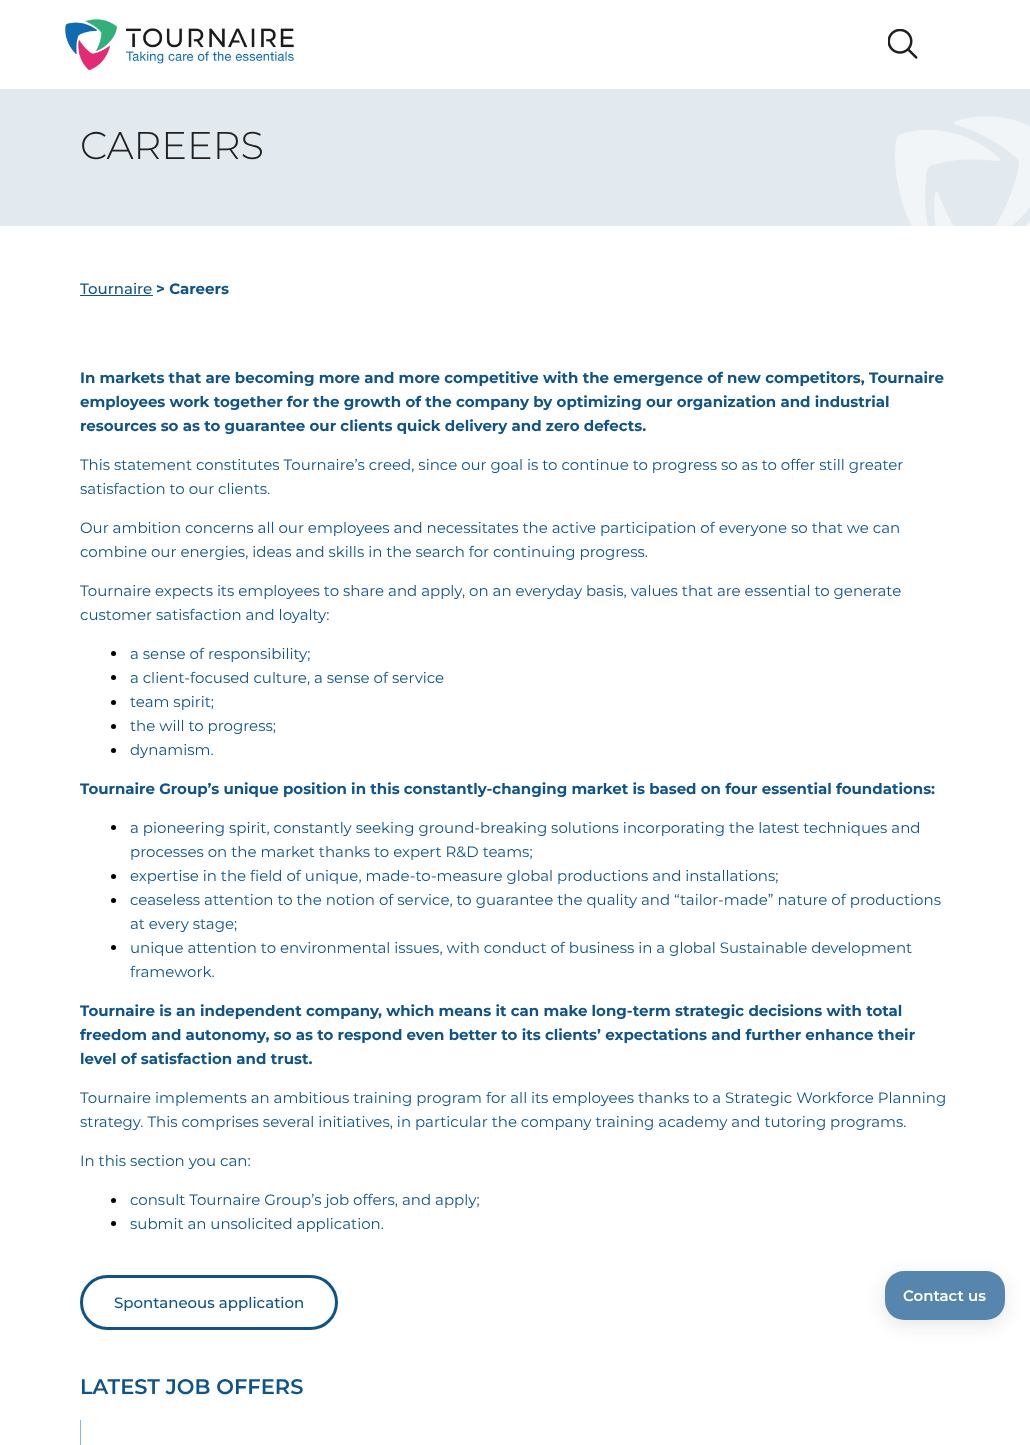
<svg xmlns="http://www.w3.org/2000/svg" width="1030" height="1445">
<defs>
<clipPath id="clip1"><path d="M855 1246h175v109h-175zm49 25h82c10.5 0 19 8.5 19 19v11c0 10.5-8.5 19-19 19h-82c-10.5 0-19-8.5-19-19v-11c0-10.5 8.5-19 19-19z" clip-rule="evenodd"/></clipPath>
</defs>
<rect width="100%" height="100%" fill="#fff"/>
<image x="65" y="19" width="229" height="51" href="media/1.png"/>
<image x="888" y="29" width="30" height="30" href="media/2.png"/>
<rect y="89" width="1030" height="137" fill="#e2eaf0"/>
<image x="895" y="116" width="135" height="110" href="media/3.png"/>
<text x="80" y="159" style="font-family:Montserrat;font-size:38.5px;font-weight:300;fill:#202020">CAREERS</text>
<text x="80" y="294" style="font-family:Montserrat;font-size:15px;font-weight:500;fill:#0e538a">Tournaire</text>
<rect x="80" y="295" width="73" height="1" fill="#0e538a"/>
<text x="156" y="294" style="font-family:Montserrat;font-size:15px;font-weight:bold;fill:#0e538a">&gt; Careers</text>
<text x="80" y="383" style="font-family:Montserrat;font-size:15px;font-weight:bold;fill:#0e538a">In markets that are becoming more and more competitive with the emergence of new competitors, Tournaire</text>
<text x="80" y="407" style="font-family:Montserrat;font-size:15px;font-weight:bold;fill:#0e538a">employees work together for the growth of the company by optimizing our organization and industrial</text>
<text x="80" y="431" style="font-family:Montserrat;font-size:15px;font-weight:bold;fill:#0e538a">resources so as to guarantee our clients quick delivery and zero defects.</text>
<text x="80" y="470" style="font-family:Montserrat;font-size:15px;fill:#0e538a">This statement constitutes Tournaire’s creed, since our goal is to continue to progress so as to offer still greater</text>
<text x="80" y="494" style="font-family:Montserrat;font-size:15px;fill:#0e538a">satisfaction to our clients.</text>
<text x="80" y="533" style="font-family:Montserrat;font-size:15px;fill:#0e538a">Our ambition concerns all our employees and necessitates the active participation of everyone so that we can</text>
<text x="80" y="557" style="font-family:Montserrat;font-size:15px;fill:#0e538a">combine our energies, ideas and skills in the search for continuing progress.</text>
<text x="80" y="596" style="font-family:Montserrat;font-size:15px;fill:#0e538a">Tournaire expects its employees to share and apply, on an everyday basis, values that are essential to generate</text>
<text x="80" y="620" style="font-family:Montserrat;font-size:15px;fill:#0e538a">customer satisfaction and loyalty:</text>
<circle cx="113.5" cy="653.5" r="2.5" fill="#000"/>
<text x="130" y="659" style="font-family:Montserrat;font-size:15px;fill:#0e538a">a sense of responsibility;</text>
<circle cx="113.5" cy="677.5" r="2.5" fill="#000"/>
<text x="130" y="683" style="font-family:Montserrat;font-size:15px;fill:#0e538a">a client-focused culture, a sense of service</text>
<circle cx="113.5" cy="702.5" r="2.5" fill="#000"/>
<text x="130" y="707" style="font-family:Montserrat;font-size:15px;fill:#0e538a">team spirit;</text>
<circle cx="113.5" cy="726.5" r="2.5" fill="#000"/>
<text x="130" y="731" style="font-family:Montserrat;font-size:15px;fill:#0e538a">the will to progress;</text>
<circle cx="113.5" cy="750.5" r="2.5" fill="#000"/>
<text x="130" y="755" style="font-family:Montserrat;font-size:15px;fill:#0e538a">dynamism.</text>
<text x="80" y="794" style="font-family:Montserrat;font-size:15px;font-weight:bold;fill:#0e538a">Tournaire Group’s unique position in this constantly-changing market is based on four essential foundations:</text>
<circle cx="113.5" cy="827.5" r="2.5" fill="#000"/>
<text x="130" y="833" style="font-family:Montserrat;font-size:15px;fill:#0e538a">a pioneering spirit, constantly seeking ground-breaking solutions incorporating the latest techniques and</text>
<text x="130" y="857" style="font-family:Montserrat;font-size:15px;fill:#0e538a">processes on the market thanks to expert R&amp;D teams;</text>
<circle cx="113.5" cy="876.5" r="2.5" fill="#000"/>
<text x="130" y="881" style="font-family:Montserrat;font-size:15px;fill:#0e538a">expertise in the field of unique, made-to-measure global productions and installations;</text>
<circle cx="113.5" cy="900.5" r="2.5" fill="#000"/>
<text x="130" y="905" style="font-family:Montserrat;font-size:15px;fill:#0e538a">ceaseless attention to the notion of service, to guarantee the quality and “tailor-made” nature of productions</text>
<text x="130" y="929" style="font-family:Montserrat;font-size:15px;fill:#0e538a">at every stage;</text>
<circle cx="113.5" cy="947.5" r="2.5" fill="#000"/>
<text x="130" y="953" style="font-family:Montserrat;font-size:15px;fill:#0e538a">unique attention to environmental issues, with conduct of business in a global Sustainable development</text>
<text x="130" y="977" style="font-family:Montserrat;font-size:15px;fill:#0e538a">framework.</text>
<text x="80" y="1016" style="font-family:Montserrat;font-size:15px;font-weight:bold;fill:#0e538a">Tournaire is an</text>
<text x="200" y="1016" style="font-family:Montserrat;font-size:15px;font-weight:bold;fill:#0e538a">independent company</text>
<text x="378" y="1016" style="font-family:Montserrat;font-size:15px;font-weight:bold;fill:#0e538a">, which means it can make long-term strategic decisions with total</text>
<text x="80" y="1040" style="font-family:Montserrat;font-size:15px;font-weight:bold;fill:#0e538a">freedom and autonomy, so as to respond even better to its clients’ expectations and further enhance their</text>
<text x="80" y="1064" style="font-family:Montserrat;font-size:15px;font-weight:bold;fill:#0e538a">level of satisfaction and trust.</text>
<text x="80" y="1103" style="font-family:Montserrat;font-size:15px;fill:#0e538a">Tournaire implements an ambitious training program for all its employees thanks to a Strategic Workforce Planning</text>
<text x="80" y="1127" style="font-family:Montserrat;font-size:15px;fill:#0e538a">strategy. This comprises several initiatives, in particular the company training academy and tutoring programs.</text>
<text x="80" y="1166" style="font-family:Montserrat;font-size:15px;fill:#0e538a">In this section you can:</text>
<circle cx="113.5" cy="1200.5" r="2.5" fill="#000"/>
<text x="130" y="1205" style="font-family:Montserrat;font-size:15px;fill:#0e538a">consult Tournaire Group’s job offers, and apply;</text>
<circle cx="113.5" cy="1223.5" r="2.5" fill="#000"/>
<text x="130" y="1229" style="font-family:Montserrat;font-size:15px;fill:#0e538a">submit an unsolicited application.</text>
<rect x="81.5" y="1276.5" width="255" height="52" rx="26" fill="none" stroke="#0e538a" stroke-width="3"/>
<text x="114" y="1308" style="font-family:Montserrat;font-size:15px;font-weight:500;fill:#0e538a">Spontaneous application</text>
<text x="80" y="1394" style="font-family:Montserrat;font-size:21px;font-weight:600;fill:#0e538a">LATEST JOB OFFERS</text>
<rect x="80" y="1420" width="1" height="25" fill="#8ab5de"/>
<g clip-path="url(#clip1)">
<rect x="885" y="1276" width="120" height="49" rx="19" fill="#0000001a" filter="blur(9.5px)"/>
</g>
<rect x="885" y="1271" width="120" height="49" rx="19" fill="#0e538ab3"/>
<text x="903" y="1301" style="font-family:Montserrat;font-size:15px;font-weight:600;fill:#fff">Contact us</text>
</svg>
